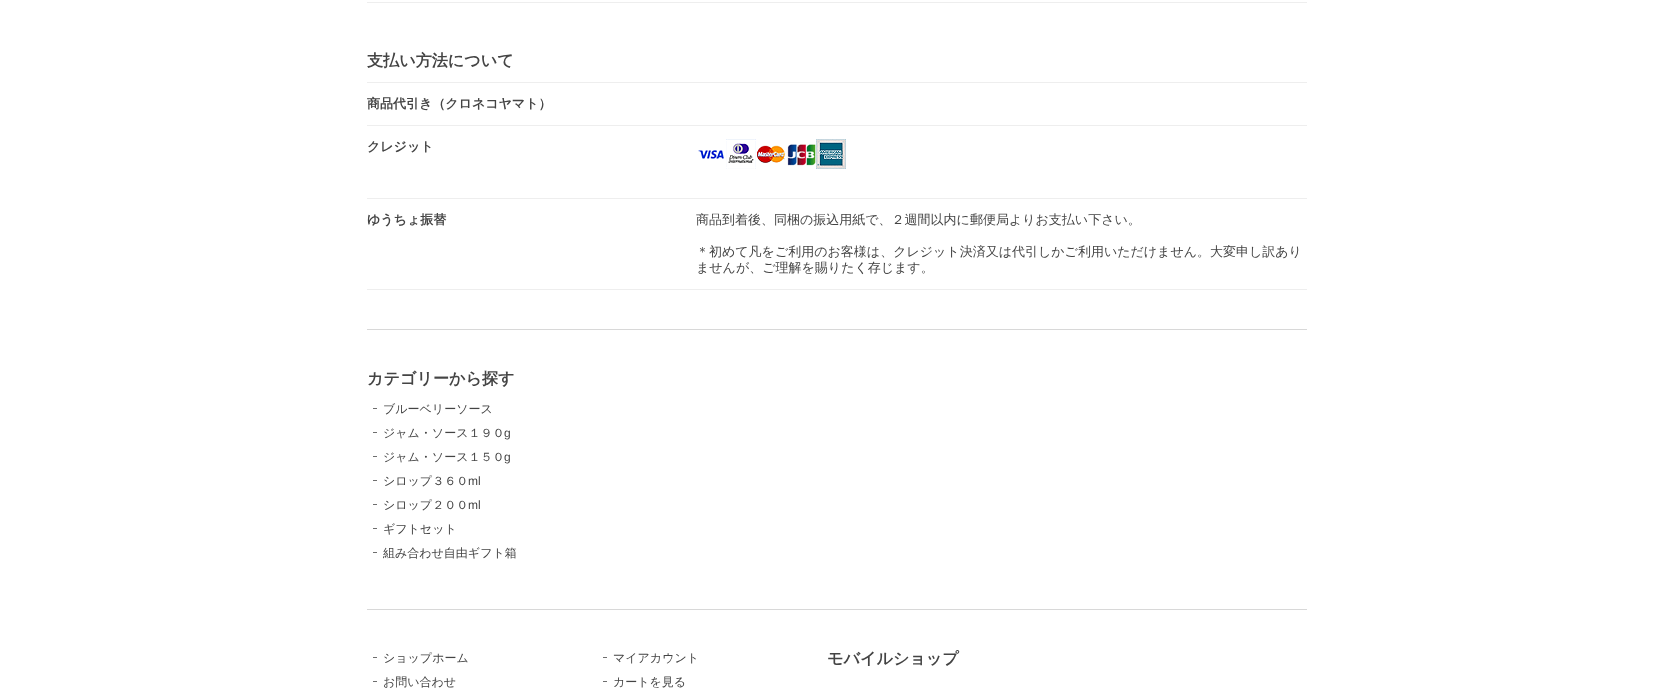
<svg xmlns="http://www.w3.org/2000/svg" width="1673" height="692">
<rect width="100%" height="100%" fill="#fff"/>
<rect x="367" y="2" width="940" height="1" fill="#eee"/>
<text x="367" y="66" style="font-family:WenQuanYi Zen Hei;font-size:16.1px;font-weight:bold;fill:#444">支払い方法について</text>
<rect x="367" y="82" width="940" height="1" fill="#eee"/>
<text x="367" y="108" style="font-family:WenQuanYi Zen Hei;font-size:13px;font-weight:bold;fill:#444">商品代引き（クロネコヤマト）</text>
<rect x="367" y="125" width="940" height="1" fill="#eee"/>
<rect x="367" y="198" width="940" height="1" fill="#eee"/>
<image x="698" y="150" width="26" height="9" href="media/1.png"/>
<image x="726" y="139" width="30" height="30" href="media/2.png"/>
<image x="757" y="145" width="29" height="18" href="media/3.png"/>
<image x="787" y="144" width="29" height="22" href="media/4.png"/>
<image x="816" y="139" width="30" height="30" href="media/5.png"/>
<text x="367" y="151" style="font-family:WenQuanYi Zen Hei;font-size:13px;font-weight:bold;fill:#444">クレジット</text>
<text x="367" y="224" style="font-family:WenQuanYi Zen Hei;font-size:13px;font-weight:bold;fill:#444">ゆうちょ振替</text>
<rect x="367" y="289" width="940" height="1" fill="#eee"/>
<text x="696" y="224" style="font-family:WenQuanYi Zen Hei;font-size:13px;font-weight:500;fill:#444">商品到着後、同梱の振込用紙で、２週間以内に郵便局よりお支払い下さい。</text>
<text x="696" y="256" style="font-family:WenQuanYi Zen Hei;font-size:13px;font-weight:500;fill:#444">＊初めて凡をご利用のお客様は、クレジット決済又は代引しかご利用いただけません。大変申し訳あり</text>
<text x="696" y="272" style="font-family:WenQuanYi Zen Hei;font-size:13px;font-weight:500;fill:#444">ませんが、ご理解を賜りたく存じます。</text>
<rect x="367" y="329" width="940" height="1" fill="#d8d8d8"/>
<text x="367" y="384" style="font-family:WenQuanYi Zen Hei;font-size:16.1px;font-weight:bold;fill:#444">カテゴリーから探す</text>
<rect x="373" y="408" width="4" height="1" fill="#6e6e6e"/>
<text x="383" y="413" style="font-family:WenQuanYi Zen Hei;font-size:12px;font-weight:500;fill:#444">ブルーベリーソース</text>
<rect x="373" y="432" width="4" height="1" fill="#6e6e6e"/>
<text x="383" y="437" style="font-family:WenQuanYi Zen Hei;font-size:12px;font-weight:500;fill:#444">ジャム・ソース１９０</text>
<text x="504" y="437" style="font-family:Liberation Sans;font-size:12px;fill:#444">g</text>
<rect x="373" y="456" width="4" height="1" fill="#6e6e6e"/>
<text x="383" y="461" style="font-family:WenQuanYi Zen Hei;font-size:12px;font-weight:500;fill:#444">ジャム・ソース１５０</text>
<text x="504" y="461" style="font-family:Liberation Sans;font-size:12px;fill:#444">g</text>
<rect x="373" y="480" width="4" height="1" fill="#6e6e6e"/>
<text x="383" y="485" style="font-family:WenQuanYi Zen Hei;font-size:12px;font-weight:500;fill:#444">シロップ３６０</text>
<text x="468" y="485" style="font-family:Liberation Sans;font-size:12px;fill:#444">ml</text>
<rect x="373" y="504" width="4" height="1" fill="#6e6e6e"/>
<text x="383" y="509" style="font-family:WenQuanYi Zen Hei;font-size:12px;font-weight:500;fill:#444">シロップ２００</text>
<text x="468" y="509" style="font-family:Liberation Sans;font-size:12px;fill:#444">ml</text>
<rect x="373" y="528" width="4" height="1" fill="#6e6e6e"/>
<text x="383" y="533" style="font-family:WenQuanYi Zen Hei;font-size:12px;font-weight:500;fill:#444">ギフトセット</text>
<rect x="373" y="552" width="4" height="1" fill="#6e6e6e"/>
<text x="383" y="557" style="font-family:WenQuanYi Zen Hei;font-size:12px;font-weight:500;fill:#444">組み合わせ自由ギフト箱</text>
<rect x="367" y="609" width="940" height="1" fill="#d8d8d8"/>
<rect x="373" y="657" width="4" height="1" fill="#6e6e6e"/>
<text x="383" y="662" style="font-family:WenQuanYi Zen Hei;font-size:12px;font-weight:500;fill:#444">ショップホーム</text>
<rect x="373" y="681" width="4" height="1" fill="#6e6e6e"/>
<text x="383" y="686" style="font-family:WenQuanYi Zen Hei;font-size:12px;font-weight:500;fill:#444">お問い合わせ</text>
<rect x="603" y="657" width="4" height="1" fill="#6e6e6e"/>
<text x="613" y="662" style="font-family:WenQuanYi Zen Hei;font-size:12px;font-weight:500;fill:#444">マイアカウント</text>
<rect x="603" y="681" width="4" height="1" fill="#6e6e6e"/>
<text x="613" y="686" style="font-family:WenQuanYi Zen Hei;font-size:12px;font-weight:500;fill:#444">カートを見る</text>
<text x="827" y="664" style="font-family:WenQuanYi Zen Hei;font-size:16.1px;font-weight:bold;fill:#444">モバイルショップ</text>
</svg>
